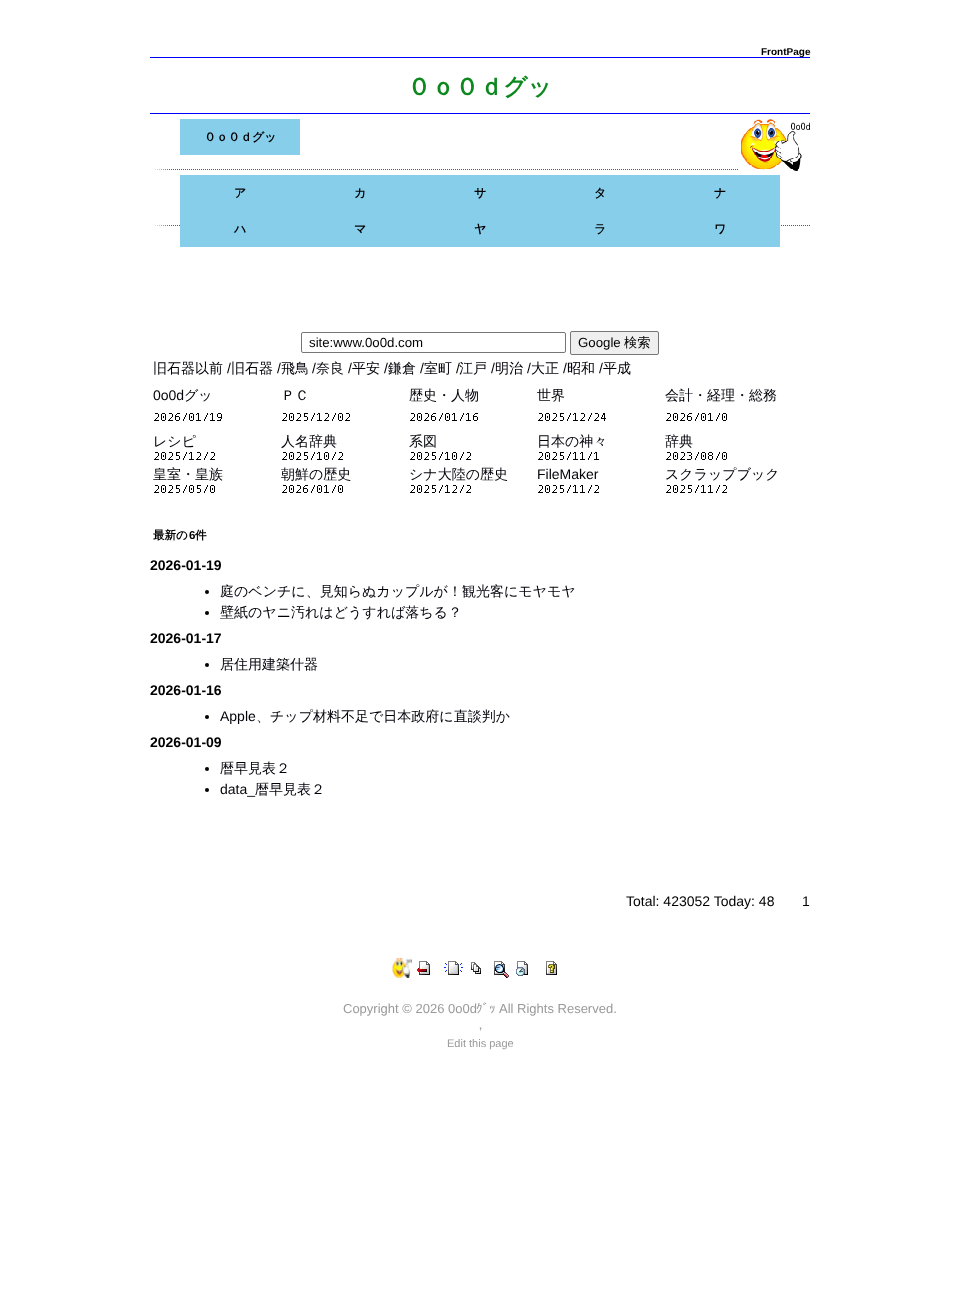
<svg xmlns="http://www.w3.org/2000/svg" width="960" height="1294">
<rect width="100%" height="100%" fill="#fff"/>
<rect x="150" y="57" width="660" height="1" fill="#00f"/>
<text x="761" y="55" style="font-family:Liberation Sans;font-size:10px;font-weight:bold;fill:#000">FrontPage</text>
<rect x="150" y="113" width="660" height="1" fill="#00f"/>
<text x="407" y="95" style="font-family:WenQuanYi Zen Hei;font-size:24px;font-weight:bold;fill:#0d881e">０ｏ０ｄグッ</text>
<rect x="180" y="119" width="120" height="36" fill="#87ceeb"/>
<text x="204" y="141" style="font-family:WenQuanYi Zen Hei;font-size:12px;font-weight:bold;fill:#000">０ｏ０ｄグッ</text>
<path d="M153 169.5h657" fill="none" stroke="#0d881e" stroke-dasharray="1 1"/>
<image x="739" y="119" width="71" height="52" href="media/1.png"/>
<path d="M153 170v-7h18v6z" fill="#fff"/>
<rect x="180" y="175" width="600" height="36" fill="#87ceeb"/>
<text x="234" y="197" style="font-family:WenQuanYi Zen Hei;font-size:12px;font-weight:bold;fill:#000">ア</text>
<text x="354" y="197" style="font-family:WenQuanYi Zen Hei;font-size:12px;font-weight:bold;fill:#000">カ</text>
<text x="474" y="197" style="font-family:WenQuanYi Zen Hei;font-size:12px;font-weight:bold;fill:#000">サ</text>
<text x="594" y="197" style="font-family:WenQuanYi Zen Hei;font-size:12px;font-weight:bold;fill:#000">タ</text>
<text x="714" y="197" style="font-family:WenQuanYi Zen Hei;font-size:12px;font-weight:bold;fill:#000">ナ</text>
<path d="M153 225.5h657" fill="none" stroke="#0d881e" stroke-dasharray="1 1"/>
<path d="M153 226v-7h18v6z" fill="#fff"/>
<rect x="180" y="211" width="600" height="36" fill="#87ceeb"/>
<text x="234" y="233" style="font-family:WenQuanYi Zen Hei;font-size:12px;font-weight:bold;fill:#000">ハ</text>
<text x="354" y="233" style="font-family:WenQuanYi Zen Hei;font-size:12px;font-weight:bold;fill:#000">マ</text>
<text x="474" y="233" style="font-family:WenQuanYi Zen Hei;font-size:12px;font-weight:bold;fill:#000">ヤ</text>
<text x="594" y="233" style="font-family:WenQuanYi Zen Hei;font-size:12px;font-weight:bold;fill:#000">ラ</text>
<text x="714" y="233" style="font-family:WenQuanYi Zen Hei;font-size:12px;font-weight:bold;fill:#000">ワ</text>
<rect x="301.5" y="332.5" width="264" height="20" rx="1.5" fill="none" stroke="#767676"/>
<text x="309" y="347" style="font-family:Liberation Sans;font-size:13.25px;fill:#000">site:www.0o0d.com</text>
<rect x="570.5" y="331.5" width="88" height="23" rx="1.5" fill="#efefef" stroke="#767676"/>
<text x="578" y="347" style="font-family:Liberation Sans;font-size:13.25px;fill:#000">Google</text>
<text x="624" y="347" style="font-family:WenQuanYi Zen Hei;font-size:13.25px;font-weight:500;fill:#000">検索</text>
<text x="153" y="373" style="font-family:WenQuanYi Zen Hei;font-size:14px;font-weight:500;fill:#000009">旧石器以前</text>
<text x="227" y="373" style="font-family:Liberation Sans;font-size:14px;fill:#000">/</text>
<text x="231" y="373" style="font-family:WenQuanYi Zen Hei;font-size:14px;font-weight:500;fill:#000009">旧石器</text>
<text x="277" y="373" style="font-family:Liberation Sans;font-size:14px;fill:#000">/</text>
<text x="281" y="373" style="font-family:WenQuanYi Zen Hei;font-size:14px;font-weight:500;fill:#000009">飛鳥</text>
<text x="312" y="373" style="font-family:Liberation Sans;font-size:14px;fill:#000">/</text>
<text x="316" y="373" style="font-family:WenQuanYi Zen Hei;font-size:14px;font-weight:500;fill:#000009">奈良</text>
<text x="348" y="373" style="font-family:Liberation Sans;font-size:14px;fill:#000">/</text>
<text x="352" y="373" style="font-family:WenQuanYi Zen Hei;font-size:14px;font-weight:500;fill:#000009">平安</text>
<text x="384" y="373" style="font-family:Liberation Sans;font-size:14px;fill:#000">/</text>
<text x="388" y="373" style="font-family:WenQuanYi Zen Hei;font-size:14px;font-weight:500;fill:#000009">鎌倉</text>
<text x="420" y="373" style="font-family:Liberation Sans;font-size:14px;fill:#000">/</text>
<text x="424" y="373" style="font-family:WenQuanYi Zen Hei;font-size:14px;font-weight:500;fill:#000009">室町</text>
<text x="456" y="373" style="font-family:Liberation Sans;font-size:14px;fill:#000">/</text>
<text x="459" y="373" style="font-family:WenQuanYi Zen Hei;font-size:14px;font-weight:500;fill:#000009">江戸</text>
<text x="491" y="373" style="font-family:Liberation Sans;font-size:14px;fill:#000009">/</text>
<text x="495" y="373" style="font-family:WenQuanYi Zen Hei;font-size:14px;font-weight:500;fill:#000009">明治</text>
<text x="527" y="373" style="font-family:Liberation Sans;font-size:14px;fill:#000009">/</text>
<text x="531" y="373" style="font-family:WenQuanYi Zen Hei;font-size:14px;font-weight:500;fill:#000009">大正</text>
<text x="563" y="373" style="font-family:Liberation Sans;font-size:14px;fill:#000009">/</text>
<text x="567" y="373" style="font-family:WenQuanYi Zen Hei;font-size:14px;font-weight:500;fill:#000009">昭和</text>
<text x="599" y="373" style="font-family:Liberation Sans;font-size:14px;fill:#000009">/</text>
<text x="603" y="373" style="font-family:WenQuanYi Zen Hei;font-size:14px;font-weight:500;fill:#000009">平成</text>
<text x="153" y="400" style="font-family:Liberation Sans;font-size:14px;fill:#000009">0o0d</text>
<text x="184" y="400" style="font-family:WenQuanYi Zen Hei;font-size:14px;font-weight:500;fill:#000009">グッ</text>
<image x="154" y="413" width="68" height="8" href="media/2.png"/>
<text x="281" y="400" style="font-family:WenQuanYi Zen Hei;font-size:14px;font-weight:500;fill:#000009">ＰＣ</text>
<image x="282" y="413" width="68" height="8" href="media/3.png"/>
<text x="409" y="400" style="font-family:WenQuanYi Zen Hei;font-size:14px;font-weight:500;fill:#000009">歴史・人物</text>
<image x="410" y="413" width="68" height="8" href="media/4.png"/>
<text x="537" y="400" style="font-family:WenQuanYi Zen Hei;font-size:14px;font-weight:500;fill:#000009">世界</text>
<image x="538" y="413" width="68" height="8" href="media/5.png"/>
<text x="665" y="400" style="font-family:WenQuanYi Zen Hei;font-size:14px;font-weight:500;fill:#000009">会計・経理・総務</text>
<image x="666" y="413" width="61" height="8" href="media/6.png"/>
<text x="153" y="446" style="font-family:WenQuanYi Zen Hei;font-size:14px;font-weight:500;fill:#000009">レシピ</text>
<image x="154" y="452" width="61" height="8" href="media/7.png"/>
<text x="281" y="446" style="font-family:WenQuanYi Zen Hei;font-size:14px;font-weight:500;fill:#000009">人名辞典</text>
<image x="282" y="452" width="61" height="8" href="media/8.png"/>
<text x="409" y="446" style="font-family:WenQuanYi Zen Hei;font-size:14px;font-weight:500;fill:#000009">系図</text>
<image x="410" y="452" width="61" height="8" href="media/8.png"/>
<text x="537" y="446" style="font-family:WenQuanYi Zen Hei;font-size:14px;font-weight:500;fill:#000009">日本の神々</text>
<image x="538" y="452" width="61" height="8" href="media/9.png"/>
<text x="665" y="446" style="font-family:WenQuanYi Zen Hei;font-size:14px;font-weight:500;fill:#000009">辞典</text>
<image x="666" y="452" width="61" height="8" href="media/10.png"/>
<text x="153" y="479" style="font-family:WenQuanYi Zen Hei;font-size:14px;font-weight:500;fill:#000009">皇室・皇族</text>
<image x="154" y="485" width="61" height="8" href="media/11.png"/>
<text x="281" y="479" style="font-family:WenQuanYi Zen Hei;font-size:14px;font-weight:500;fill:#000009">朝鮮の歴史</text>
<image x="282" y="485" width="61" height="8" href="media/6.png"/>
<text x="409" y="479" style="font-family:WenQuanYi Zen Hei;font-size:14px;font-weight:500;fill:#000009">シナ大陸の歴史</text>
<image x="410" y="485" width="61" height="8" href="media/7.png"/>
<text x="537" y="479" style="font-family:Liberation Sans;font-size:14px;fill:#000009">FileMaker</text>
<image x="538" y="485" width="61" height="8" href="media/12.png"/>
<text x="665" y="479" style="font-family:WenQuanYi Zen Hei;font-size:14px;font-weight:500;fill:#000009">スクラップブック</text>
<image x="666" y="485" width="61" height="8" href="media/12.png"/>
<text x="153" y="539" style="font-family:WenQuanYi Zen Hei;font-size:11.5px;font-weight:bold;fill:#000">最新の</text>
<text x="189" y="539" style="font-family:Liberation Sans;font-size:11.5px;font-weight:bold;fill:#000">6</text>
<text x="195" y="539" style="font-family:WenQuanYi Zen Hei;font-size:11.5px;font-weight:bold;fill:#000">件</text>
<text x="150" y="570" style="font-family:Liberation Sans;font-size:14px;font-weight:bold;fill:#000">2026-01-19</text>
<circle cx="207" cy="592" r="2" fill="#000"/>
<text x="220" y="596" style="font-family:WenQuanYi Zen Hei;font-size:14px;font-weight:500;fill:#000009">庭のベンチに、見知らぬカップルが！観光客にモヤモヤ</text>
<circle cx="207" cy="613" r="2" fill="#000"/>
<text x="220" y="617" style="font-family:WenQuanYi Zen Hei;font-size:14px;font-weight:500;fill:#000009">壁紙のヤニ汚れはどうすれば落ちる？</text>
<text x="150" y="643" style="font-family:Liberation Sans;font-size:14px;font-weight:bold;fill:#000">2026-01-17</text>
<circle cx="207" cy="665" r="2" fill="#000"/>
<text x="220" y="669" style="font-family:WenQuanYi Zen Hei;font-size:14px;font-weight:500;fill:#000009">居住用建築什器</text>
<text x="150" y="695" style="font-family:Liberation Sans;font-size:14px;font-weight:bold;fill:#000">2026-01-16</text>
<circle cx="207" cy="717" r="2" fill="#000"/>
<text x="220" y="721" style="font-family:Liberation Sans;font-size:14px;fill:#000009">Apple</text>
<text x="256" y="721" style="font-family:WenQuanYi Zen Hei;font-size:14px;font-weight:500;fill:#000009">、チップ材料不足で日本政府に直談判か</text>
<text x="150" y="747" style="font-family:Liberation Sans;font-size:14px;font-weight:bold;fill:#000">2026-01-09</text>
<circle cx="207" cy="769" r="2" fill="#000"/>
<text x="220" y="773" style="font-family:WenQuanYi Zen Hei;font-size:14px;font-weight:500;fill:#000009">暦早見表２</text>
<circle cx="207" cy="790" r="2" fill="#000"/>
<text x="220" y="794" style="font-family:Liberation Sans;font-size:14px;fill:#000009">data_</text>
<text x="255" y="794" style="font-family:WenQuanYi Zen Hei;font-size:14px;font-weight:500;fill:#000009">暦早見表２</text>
<text x="626" y="906" style="font-family:Liberation Sans;font-size:14px;fill:#000">Total: 423052 Today: 48</text>
<text x="802" y="906" style="font-family:Liberation Sans;font-size:14px;fill:#000">1</text>
<image x="392" y="958" width="20" height="20" href="media/13.png"/>
<image x="417" y="961" width="13" height="14" href="media/14.png"/>
<image x="444" y="961" width="19" height="14" href="media/15.png"/>
<image x="471" y="962" width="10" height="12" href="media/16.png"/>
<image x="494" y="961" width="15" height="17" href="media/17.png"/>
<image x="516" y="961" width="12" height="15" href="media/18.png"/>
<image x="546" y="961" width="11" height="14" href="media/19.png"/>
<text x="343" y="1013" style="font-family:Liberation Sans;font-size:13px;fill:#999">Copyright © 2026 0o0d</text>
<text x="476" y="1013" style="font-family:IPAPGothic;font-size:13px;fill:#999">ｸﾞｯ</text>
<text x="499" y="1013" style="font-family:Liberation Sans;font-size:13px;fill:#999">All Rights Reserved.</text>
<text x="474" y="1029" style="font-family:WenQuanYi Zen Hei;font-size:13px;font-weight:500;fill:#999">，</text>
<text x="447" y="1047" style="font-family:Liberation Sans;font-size:11px;fill:#999">Edit this page</text>
</svg>
